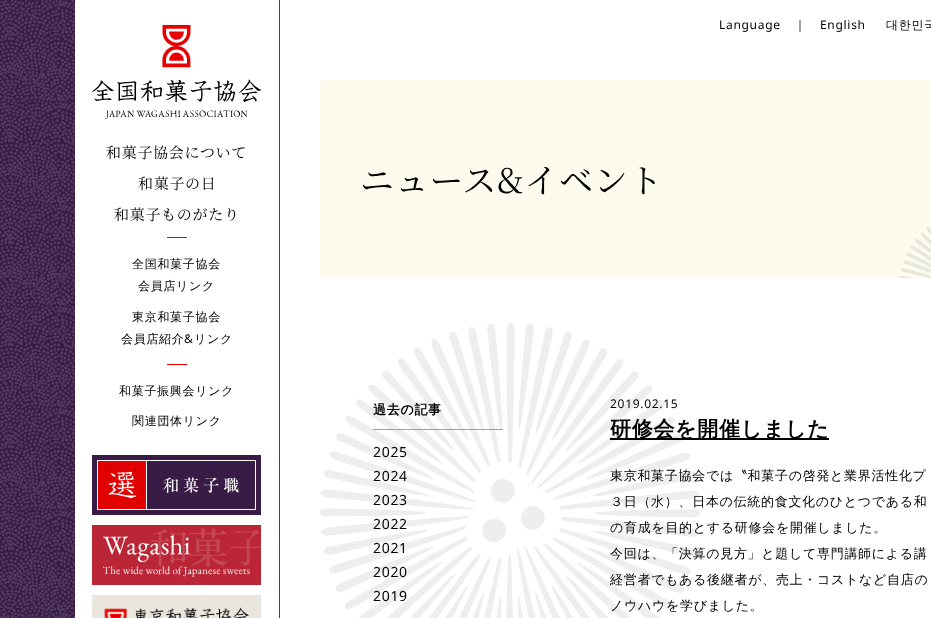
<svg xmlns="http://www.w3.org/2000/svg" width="931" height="618">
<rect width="100%" height="100%" fill="#fff"/>
<image x="0" y="0" width="75" height="618" href="media/1.png"/>
<rect x="279" width="1" height="618" fill="#e80000"/>
<image x="92" y="25" width="169" height="94" href="media/2.png"/>
<text x="106" y="158" style="font-family:Noto Serif JP;font-size:15px;letter-spacing:0.7px;fill:#000">和菓子協会について</text>
<text x="138" y="189" style="font-family:Noto Serif JP;font-size:15px;letter-spacing:0.7px;fill:#000">和菓子の日</text>
<text x="114" y="220" style="font-family:Noto Serif JP;font-size:15px;letter-spacing:0.7px;fill:#000">和菓子ものがたり</text>
<rect x="167" y="237" width="20" height="1" fill="#e80000"/>
<text x="132" y="268" style="font-family:WenQuanYi Zen Hei;font-size:12px;font-weight:500;letter-spacing:0.7px;fill:#000">全国和菓子協会</text>
<text x="138" y="290" style="font-family:WenQuanYi Zen Hei;font-size:12px;font-weight:500;letter-spacing:0.7px;fill:#000">会員店リンク</text>
<text x="132" y="321" style="font-family:WenQuanYi Zen Hei;font-size:12px;font-weight:500;letter-spacing:0.7px;fill:#000">東京和菓子協会</text>
<text x="121" y="343" style="font-family:WenQuanYi Zen Hei;font-size:12px;font-weight:500;letter-spacing:0.7px;fill:#000">会員店紹介</text>
<text x="184" y="343" style="font-family:Noto Sans;font-size:12px;letter-spacing:0.7px;fill:#000">&amp;</text>
<text x="194" y="343" style="font-family:WenQuanYi Zen Hei;font-size:12px;font-weight:500;letter-spacing:0.7px;fill:#000">リンク</text>
<rect x="167" y="364" width="20" height="1" fill="#e80000"/>
<text x="119" y="395" style="font-family:WenQuanYi Zen Hei;font-size:12px;font-weight:500;letter-spacing:0.7px;fill:#000">和菓子振興会リンク</text>
<text x="132" y="425" style="font-family:WenQuanYi Zen Hei;font-size:12px;font-weight:500;letter-spacing:0.7px;fill:#000">関連団体リンク</text>
<image x="92" y="455" width="169" height="60" href="media/3.png"/>
<image x="92" y="525" width="169" height="60" href="media/4.png"/>
<image x="92" y="595" width="169" height="23" href="media/5.png"/>
<text x="719" y="29" style="font-family:Noto Sans;font-size:12px;letter-spacing:0.7px;fill:#000">Language</text>
<text x="794" y="29" style="font-family:WenQuanYi Zen Hei;font-size:12px;font-weight:500;letter-spacing:0.7px;fill:#000">｜</text>
<text x="820" y="29" style="font-family:Noto Sans;font-size:12px;letter-spacing:0.7px;fill:#000">English</text>
<text x="886" y="29" style="font-family:WenQuanYi Zen Hei;font-size:12px;font-weight:500;letter-spacing:0.7px;fill:#000">대한민국</text>
<rect x="320" y="80" width="611" height="198" fill="#fcfbee"/>
<image x="899" y="227" width="32" height="51" href="media/6.png"/>
<text x="360" y="193" style="font-family:Noto Serif JP;font-size:34px;letter-spacing:0.7px;fill:#000">ニュース&amp;イベント</text>
<image x="320" y="323" width="380" height="295" href="media/7.png"/>
<rect x="373" y="429" width="130" height="1" fill="#a0a0a0"/>
<text x="373" y="414" style="font-family:WenQuanYi Zen Hei;font-size:13px;font-weight:bold;letter-spacing:0.7px;fill:#000">過去の記事</text>
<text x="373" y="457" style="font-family:Noto Sans;font-size:14px;letter-spacing:0.7px;fill:#000">2025</text>
<text x="373" y="481" style="font-family:Noto Sans;font-size:14px;letter-spacing:0.7px;fill:#000">2024</text>
<text x="373" y="505" style="font-family:Noto Sans;font-size:14px;letter-spacing:0.7px;fill:#000">2023</text>
<text x="373" y="529" style="font-family:Noto Sans;font-size:14px;letter-spacing:0.7px;fill:#000">2022</text>
<text x="373" y="553" style="font-family:Noto Sans;font-size:14px;letter-spacing:0.7px;fill:#000">2021</text>
<text x="373" y="577" style="font-family:Noto Sans;font-size:14px;letter-spacing:0.7px;fill:#000">2020</text>
<text x="373" y="601" style="font-family:Noto Sans;font-size:14px;letter-spacing:0.7px;fill:#000">2019</text>
<text x="610" y="408" style="font-family:Noto Sans;font-size:12px;letter-spacing:0.7px;fill:#000">2019.02.15</text>
<rect x="610" y="438" width="219" height="2" fill="#000"/>
<text x="610" y="436" style="font-family:WenQuanYi Zen Hei;font-size:21px;font-weight:bold;letter-spacing:0.7px;fill:#000">研修会を開催しました</text>
<text x="610" y="480" style="font-family:WenQuanYi Zen Hei;font-size:13px;font-weight:500;letter-spacing:0.7px;fill:#000">東京和菓子協会では〝和菓子の啓発と業界活性化プ</text>
<text x="610" y="506" style="font-family:WenQuanYi Zen Hei;font-size:13px;font-weight:500;letter-spacing:0.7px;fill:#000">３日（水）、日本の伝統的食文化のひとつである和</text>
<text x="610" y="532" style="font-family:WenQuanYi Zen Hei;font-size:13px;font-weight:500;letter-spacing:0.7px;fill:#000">の育成を目的とする研修会を開催しました。</text>
<text x="610" y="558" style="font-family:WenQuanYi Zen Hei;font-size:13px;font-weight:500;letter-spacing:0.7px;fill:#000">今回は、「決算の見方」と題して専門講師による講</text>
<text x="610" y="584" style="font-family:WenQuanYi Zen Hei;font-size:13px;font-weight:500;letter-spacing:0.7px;fill:#000">経営者でもある後継者が、売上・コストなど自店の</text>
<text x="610" y="610" style="font-family:WenQuanYi Zen Hei;font-size:13px;font-weight:500;letter-spacing:0.7px;fill:#000">ノウハウを学びました。</text>
</svg>
